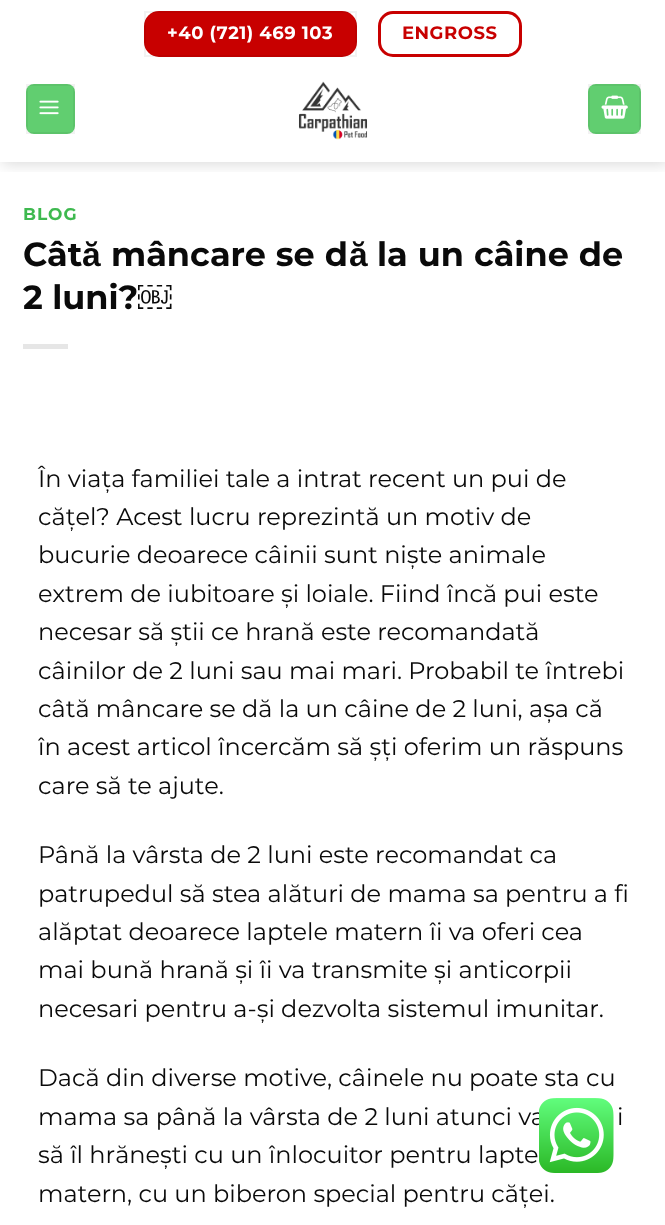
<svg xmlns="http://www.w3.org/2000/svg" width="665" height="1225">
<defs>
<clipPath id="clip1"><rect x="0" y="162" width="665" height="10"/></clipPath>
</defs>
<rect width="100%" height="100%" fill="#fff"/>
<g clip-path="url(#clip1)">
<rect x="2" y="2" width="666" height="162" fill="#00000026" filter="blur(7.5px)"/>
</g>
<rect x="144" y="11" width="213" height="46" rx="15" fill="#c80000"/>
<rect x="145" y="12" width="211" height="44" fill="none" stroke="#0000000d" stroke-width="2"/>
<text x="167" y="39" style="font-family:Montserrat;font-size:18px;font-weight:bold;letter-spacing:0.5px;fill:#fff">+40 (721) 469 103</text>
<rect x="379.5" y="12.5" width="141" height="43" rx="13.5" fill="none" stroke="#c80000" stroke-width="3"/>
<text x="402" y="39" style="font-family:Montserrat;font-size:18px;font-weight:bold;letter-spacing:0.5px;fill:#c80000">ENGROSS</text>
<rect x="26" y="84" width="49" height="50" rx="8" fill="#61ce70"/>
<rect x="27" y="85" width="47" height="48" fill="none" stroke="#0000000d" stroke-width="2"/>
<image x="39" y="100" width="20" height="15" href="media/1.png"/>
<image x="298" y="81" width="70" height="59" href="media/2.png"/>
<rect x="588" y="84" width="53" height="50" rx="8" fill="#61ce70"/>
<rect x="589" y="85" width="51" height="48" fill="none" stroke="#0000000d" stroke-width="2"/>
<image x="601" y="95" width="27" height="24" href="media/3.png"/>
<text x="23" y="220" style="font-family:Montserrat;font-size:17px;font-weight:bold;letter-spacing:1px;fill:#3eb94f">BLOG</text>
<text x="23" y="266" style="font-family:Montserrat;font-size:33.5px;font-weight:bold;fill:#0a0a0a">Cât</text>
<text x="82" y="266" style="font-family:Liberation Sans;font-size:33.5px;font-weight:bold;fill:#0a0a0a">ă</text>
<text x="111" y="266" word-spacing="0.5" style="font-family:Montserrat;font-size:33.5px;font-weight:bold;fill:#0a0a0a">mâncare se d</text>
<text x="349" y="266" style="font-family:Liberation Sans;font-size:33.5px;font-weight:bold;fill:#0a0a0a">ă</text>
<text x="377" y="266" word-spacing="0.5" style="font-family:Montserrat;font-size:33.5px;font-weight:bold;fill:#0a0a0a">la un câine de</text>
<text x="23" y="309" style="font-family:Montserrat;font-size:33.5px;font-weight:bold;fill:#0a0a0a">2 luni?</text>
<text x="138" y="309" style="font-family:Liberation Sans;font-size:33.5px;font-weight:bold;fill:#0a0a0a">￼</text>
<rect x="23" y="344" width="45" height="5" fill="#e6e6e6"/>
<text x="38" y="487" style="font-family:Montserrat;font-size:24px;fill:#0a0a0a">În viața familiei tale a intrat recent un pui de</text>
<text x="38" y="525" style="font-family:Montserrat;font-size:24px;fill:#0a0a0a">cățel? Acest lucru reprezintă un motiv de</text>
<text x="38" y="563" style="font-family:Montserrat;font-size:24px;fill:#0a0a0a">bucurie deoarece câinii sunt niște animale</text>
<text x="38" y="602" style="font-family:Montserrat;font-size:24px;fill:#0a0a0a">extrem de iubitoare și loiale. Fiind încă pui este</text>
<text x="38" y="640" style="font-family:Montserrat;font-size:24px;fill:#0a0a0a">necesar să știi ce hrană este recomandată</text>
<text x="38" y="679" style="font-family:Montserrat;font-size:24px;fill:#0a0a0a">câinilor de 2 luni sau mai mari. Probabil te întrebi</text>
<text x="38" y="717" style="font-family:Montserrat;font-size:24px;fill:#0a0a0a">câtă mâncare se dă la un câine de 2 luni, așa că</text>
<text x="38" y="755" style="font-family:Montserrat;font-size:24px;fill:#0a0a0a">în acest articol încercăm să șți oferim un răspuns</text>
<text x="38" y="794" style="font-family:Montserrat;font-size:24px;fill:#0a0a0a">care să te ajute.</text>
<text x="38" y="863" style="font-family:Montserrat;font-size:24px;fill:#0a0a0a">Până la vârsta de 2 luni este recomandat ca</text>
<text x="38" y="902" style="font-family:Montserrat;font-size:24px;fill:#0a0a0a">patrupedul să stea alături de mama sa pentru a fi</text>
<text x="38" y="940" style="font-family:Montserrat;font-size:24px;fill:#0a0a0a">alăptat deoarece laptele matern îi va oferi cea</text>
<text x="38" y="978" style="font-family:Montserrat;font-size:24px;fill:#0a0a0a">mai bună hrană și îi va transmite și anticorpii</text>
<text x="38" y="1017" style="font-family:Montserrat;font-size:24px;fill:#0a0a0a">necesari pentru a-și dezvolta sistemul imunitar.</text>
<text x="38" y="1086" style="font-family:Montserrat;font-size:24px;fill:#0a0a0a">Dacă din diverse motive, câinele nu poate sta cu</text>
<text x="38" y="1125" style="font-family:Montserrat;font-size:24px;fill:#0a0a0a">mama sa până la vârsta de 2 luni atunci va</text>
<text x="617" y="1125" style="font-family:Montserrat;font-size:24px;fill:#0a0a0a">i</text>
<text x="38" y="1163" style="font-family:Montserrat;font-size:24px;fill:#0a0a0a">să îl hrănești cu un înlocuitor pentru lapte</text>
<text x="38" y="1202" style="font-family:Montserrat;font-size:24px;fill:#0a0a0a">matern, cu un biberon special pentru căței.</text>
<image x="539" y="1098" width="75" height="75" href="media/4.png"/>
</svg>
